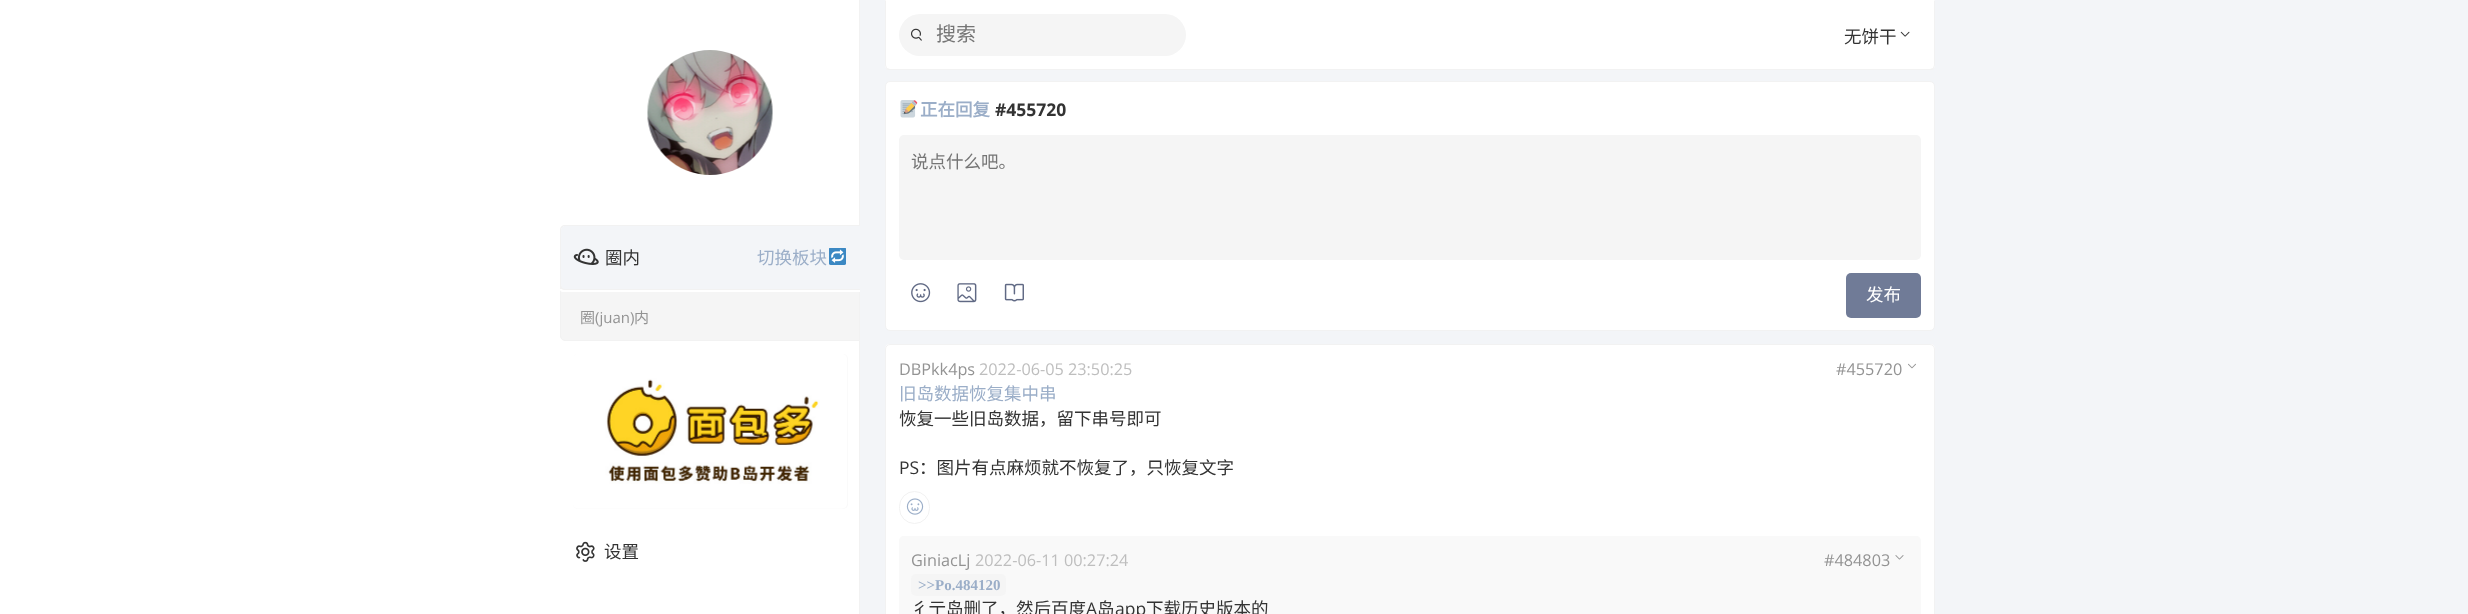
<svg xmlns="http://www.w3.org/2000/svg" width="2468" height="614">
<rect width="100%" height="100%" fill="#f3f5f8"/>
<rect width="859" height="614" fill="#fff"/>
<rect x="859" width="1" height="614" fill="#f2f2f2"/>
<image x="647" y="50" width="126" height="125" href="media/1.png"/>
<path d="M560.5 286.5h299v54h-294.5c-2.5 0-4.5-2-4.5-4.5z" fill="#f5f5f5" stroke="#f2f2f2"/>
<path d="M565 226h295v63h-295c-2 0-4-2-4-4v-55c0-2 2-4 4-4z" fill="#f3f5f8"/>
<path d="M560 289h300v3h-297.5c-1.5 0-2.5-1-2.5-2.5z" fill="#fff"/>
<path d="M565 225c-3 0-5 2-5 5v55c0 3 2 5 5 5h295v-1h-295c-2 0-4-2-4-4v-55c0-2 2-4 4-4h295v-1z" fill="#f2f2f2"/>
<image x="573" y="248" width="26" height="17" href="media/2.png"/>
<text x="605" y="264" style="font-family:Noto Sans CJK SC;font-size:17.5px;fill:#333">圈内</text>
<text x="757" y="264" style="font-family:Noto Sans CJK SC;font-size:17.5px;fill:#9baec8">切换板块</text>
<image x="829" y="248" width="17" height="17" href="media/3.png"/>
<text x="580" y="323" style="font-family:Noto Sans CJK SC;font-size:15px;fill:#939393">圈</text>
<text x="595" y="323" style="font-family:Open Sans;font-size:15px;fill:#939393">(juan)</text>
<text x="634" y="323" style="font-family:Noto Sans CJK SC;font-size:15px;fill:#939393">内</text>
<rect x="573" y="354" width="275" height="155" rx="5" fill="#f5f5f5"/>
<image x="573" y="354" width="275" height="155" href="media/4.png"/>
<image x="576" y="541" width="19" height="21" href="media/5.png"/>
<text x="604" y="558" style="font-family:Noto Sans CJK SC;font-size:17.5px;fill:#333">设置</text>
<path d="M885 0h1050v65c0 3-2 5-5 5h-1040c-3 0-5-2-5-5z" fill="#fff"/>
<path d="M1935 0l-1 1v64l-1 3l1 1c0-1 1-3 1-4z" fill="#f2f2f2"/>
<path d="M890 70h1040c2 0 3 0 4-1l-1-1l-3 1h-1040l-3-1l-1 1c1 1 2 1 4 1z" fill="#f2f2f2"/>
<path d="M886 1l-1-1v65c0 1 1 3 1 4l1-1l-1-3z" fill="#f2f2f2"/>
<rect x="899" y="14" width="287" height="42" rx="21" fill="#f5f5f5"/>
<image x="911" y="28" width="11" height="13" href="media/6.png"/>
<text x="936" y="41" style="font-family:Noto Sans CJK SC;font-size:20px;fill:#757575">搜索</text>
<text x="1844" y="43" style="font-family:Noto Sans CJK SC;font-size:17.5px;fill:#333">无饼干</text>
<image x="1900" y="31" width="10" height="6" href="media/7.png"/>
<rect x="885.5" y="81.5" width="1049" height="249" rx="4.5" fill="#fff" stroke="#f2f2f2"/>
<image x="900" y="100" width="18" height="18" href="media/8.png"/>
<text x="920" y="116" style="font-family:Noto Sans CJK SC;font-size:17.5px;font-weight:bold;fill:#9baec8">正在回复</text>
<text x="995" y="116" style="font-family:Open Sans;font-size:17.5px;font-weight:bold;fill:#333">#455720</text>
<rect x="899" y="135" width="1022" height="125" rx="5" fill="#f5f5f5"/>
<text x="911" y="168" style="font-family:Noto Sans CJK SC;font-size:17.5px;fill:#757575">说点什么吧。</text>
<image x="911" y="283" width="20" height="20" href="media/9.png"/>
<image x="957" y="283" width="20" height="20" href="media/10.png"/>
<image x="1004" y="283" width="20" height="19" href="media/11.png"/>
<rect x="1846" y="273" width="75" height="45" rx="5" fill="#707b97"/>
<text x="1866" y="301" style="font-family:Noto Sans CJK SC;font-size:17.5px;fill:#fff">发布</text>
<path d="M890 344h1040c3 0 5 2 5 5v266h-1050v-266c0-3 2-5 5-5z" fill="#fff"/>
<rect x="885.5" y="344.5" width="1049" height="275" rx="4.5" fill="none" stroke="#f2f2f2"/>
<text x="899" y="375" style="font-family:Open Sans;font-size:16.25px;fill:#939393">DBPkk4ps</text>
<text x="979" y="375" style="font-family:Open Sans;font-size:16.25px;fill:#bebebe">2022-06-05 23:50:25</text>
<text x="1836" y="375" style="font-family:Open Sans;font-size:16.25px;fill:#939393">#455720</text>
<image x="1908" y="363" width="8" height="6" href="media/12.png"/>
<text x="899" y="400" style="font-family:Noto Sans CJK SC;font-size:17.5px;fill:#9baec8">旧岛数据恢复集中串</text>
<text x="899" y="425" style="font-family:Noto Sans CJK SC;font-size:17.5px;fill:#333">恢复一些旧岛数据，留下串号即可</text>
<text x="899" y="474" style="font-family:Open Sans;font-size:17.5px;fill:#333">PS</text>
<text x="919" y="474" style="font-family:Noto Sans CJK SC;font-size:17.5px;fill:#333">：图片有点麻烦就不恢复了，只恢复文字</text>
<rect x="899.5" y="491.5" width="30" height="32" rx="15" fill="none" stroke="#f2f2f2"/>
<image x="906" y="498" width="18" height="17" href="media/13.png"/>
<path d="M904 536h1012c3 0 5 2 5 5v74h-1022v-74c0-3 2-5 5-5z" fill="#f9f9f9"/>
<text x="911" y="566" style="font-family:Open Sans;font-size:16.25px;fill:#939393">GiniacLj</text>
<text x="975" y="566" style="font-family:Open Sans;font-size:16.25px;fill:#bebebe">2022-06-11 00:27:24</text>
<text x="1824" y="566" style="font-family:Open Sans;font-size:16.25px;fill:#939393">#484803</text>
<image x="1895" y="555" width="9" height="5" href="media/14.png"/>
<rect x="911" y="574" width="95" height="22" rx="5" fill="#f5f5f5"/>
<text x="918" y="590" style="font-family:Liberation Serif;font-size:15px;font-weight:bold;fill:#9baec8">&gt;&gt;Po.484120</text>
<text x="911" y="615" style="font-family:Noto Sans CJK SC;font-size:17.5px;fill:#333">彳亍岛删了，然后百度</text>
<text x="1086" y="615" style="font-family:Open Sans;font-size:17.5px;fill:#333">A</text>
<text x="1097" y="615" style="font-family:Noto Sans CJK SC;font-size:17.5px;fill:#333">岛</text>
<text x="1115" y="615" style="font-family:Open Sans;font-size:17.5px;fill:#333">app</text>
<text x="1146" y="615" style="font-family:Noto Sans CJK SC;font-size:17.5px;fill:#333">下载历史版本的</text>
</svg>
